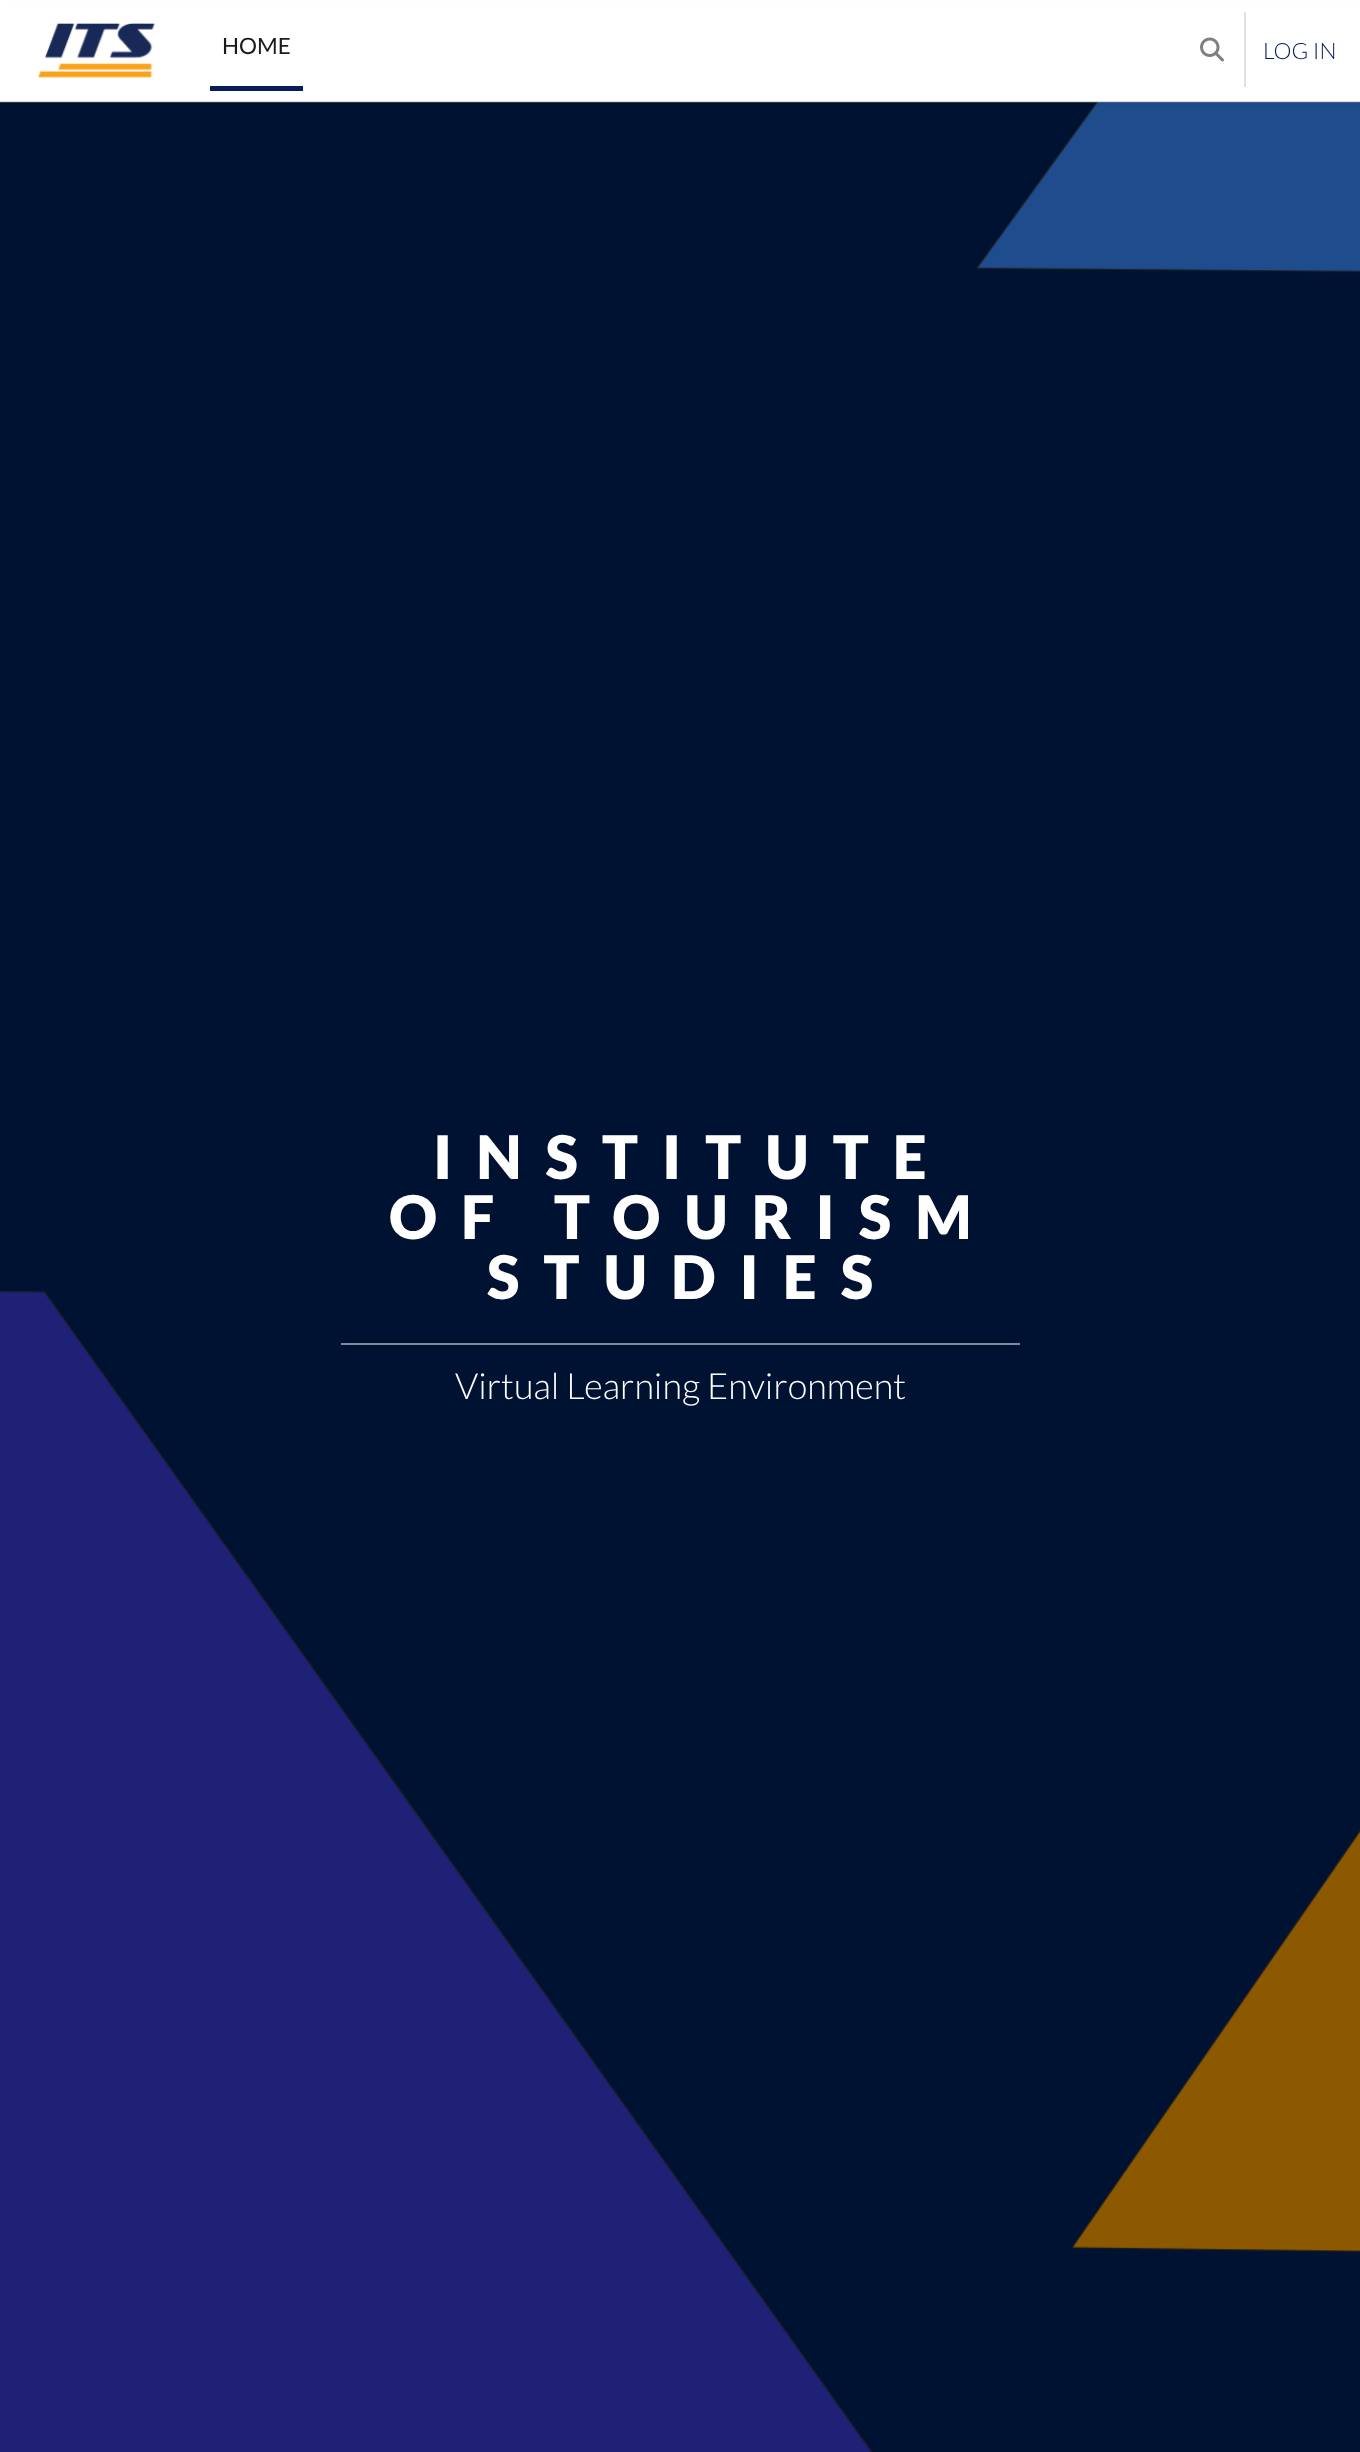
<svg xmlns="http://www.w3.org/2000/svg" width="1360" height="2452">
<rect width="100%" height="100%" fill="#fff"/>
<image x="0" y="102" width="1360" height="2350" href="media/3.png"/>
<rect y="2" width="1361" height="102" fill="#0000000d" filter="blur(1.5px)"/>
<rect y="1" width="1360" height="101" fill="#fff"/>
<rect y="101" width="1360" height="2" fill="#90909059"/>
<image x="38" y="23" width="117" height="55" href="media/1.png"/>
<rect x="210" y="86" width="93" height="5" fill="#071c59"/>
<text x="222" y="54" style="font-family:Lato;font-size:22.5px;fill:#1a1a1a">HOME</text>
<image x="1200" y="37" width="24" height="25" href="media/2.png"/>
<rect x="1244" y="12" width="2" height="75" fill="#dee2e6"/>
<text x="1263" y="59" style="font-family:Lato;font-size:22.5px;font-weight:300;fill:#071c59">LOG IN</text>
<rect x="341" y="1343" width="679" height="2" fill="#808999"/>
<text x="433" y="1179" style="font-family:Lato;font-size:60px;font-weight:900;letter-spacing:24px;fill:#fff">INSTITUTE</text>
<text x="389" y="1239" style="font-family:Lato;font-size:60px;font-weight:900;letter-spacing:24px;fill:#fff">OF TOURISM</text>
<text x="487" y="1299" style="font-family:Lato;font-size:60px;font-weight:900;letter-spacing:24px;fill:#fff">STUDIES</text>
<text x="455" y="1399" style="font-family:Lato;font-size:36px;font-weight:300;fill:#fff">Virtual Learning Environment</text>
</svg>
